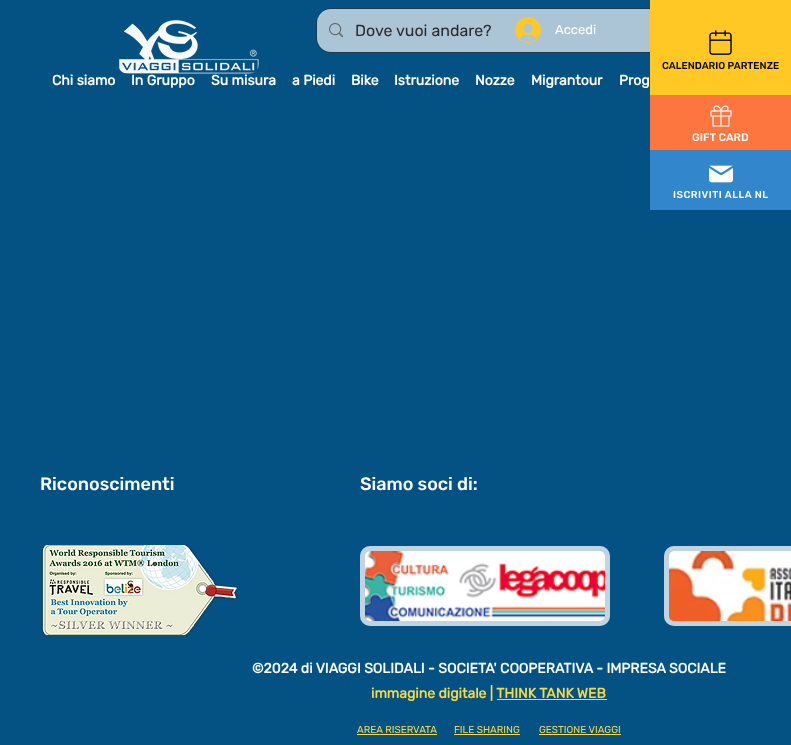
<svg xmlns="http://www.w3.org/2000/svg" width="791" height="745">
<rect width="100%" height="100%" fill="#045184"/>
<image x="119" y="20" width="140" height="54" href="media/1.png"/>
<rect x="316.5" y="8.5" width="359" height="44" rx="14.5" fill="none" stroke="#1b3a4e"/>
<rect x="317" y="9" width="358" height="43" rx="14" fill="#ffffffab"/>
<image x="329" y="23" width="14" height="15" href="media/2.png"/>
<text x="355" y="36" style="font-family:Rubik;font-size:16px;fill:#2a2a2a">Dove vuoi andare?</text>
<text x="52" y="85" style="font-family:Rubik;font-size:14px;font-weight:bold;fill:#fff">Chi siamo</text>
<text x="131" y="85" style="font-family:Rubik;font-size:14px;font-weight:bold;fill:#fff">In Gruppo</text>
<text x="211" y="85" style="font-family:Rubik;font-size:14px;font-weight:bold;fill:#fff">Su misura</text>
<text x="292" y="85" style="font-family:Rubik;font-size:14px;font-weight:bold;fill:#fff">a Piedi</text>
<text x="351" y="85" style="font-family:Rubik;font-size:14px;font-weight:bold;fill:#fff">Bike</text>
<text x="394" y="85" style="font-family:Rubik;font-size:14px;font-weight:bold;fill:#fff">Istruzione</text>
<text x="475" y="85" style="font-family:Rubik;font-size:14px;font-weight:bold;fill:#fff">Nozze</text>
<text x="531" y="85" style="font-family:Rubik;font-size:14px;font-weight:bold;fill:#fff">Migrantour</text>
<text x="619" y="85" style="font-family:Rubik;font-size:14px;font-weight:bold;fill:#fff">Prog</text>
<image x="515" y="17" width="26" height="26" href="media/3.png"/>
<text x="555" y="34" style="font-family:Rubik;font-size:13px;fill:#fff">Accedi</text>
<rect x="650" width="141" height="95" fill="#ffc824"/>
<image x="709" y="30" width="23" height="25" href="media/4.png"/>
<text x="662" y="69" style="font-family:'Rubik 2';font-size:10px;font-weight:500;fill:#000">CALENDARIO PARTENZE</text>
<rect x="650" y="95" width="141" height="55" fill="#fd763f"/>
<image x="710" y="105" width="22" height="22" href="media/5.png"/>
<text x="692" y="141" style="font-family:Rubik;font-size:11px;font-weight:500;fill:#fff">GIFT CARD</text>
<rect x="650" y="150" width="141" height="60" fill="#3186cc"/>
<image x="709" y="165" width="24" height="18" href="media/6.png"/>
<text x="673" y="198" style="font-family:Rubik;font-size:10px;font-weight:500;letter-spacing:0.5px;fill:#fff">ISCRIVITI ALLA NL</text>
<text x="40" y="490" style="font-family:Rubik;font-size:18px;font-weight:500;fill:#fff">Riconoscimenti</text>
<text x="360" y="490" style="font-family:Rubik;font-size:18px;font-weight:500;fill:#fff">Siamo soci di:</text>
<image x="41" y="545" width="197" height="90" href="media/7.png"/>
<rect x="360" y="546" width="250" height="80" rx="10" fill="#82a8c2"/>
<rect x="362.5" y="548.5" width="245" height="75" rx="7.5" fill="none" stroke="#ffffff80" stroke-width="5"/>
<image x="365" y="551" width="240" height="70" href="media/8.png"/>
<rect x="664" y="546" width="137" height="80" rx="10" fill="#82a8c2"/>
<rect x="666.5" y="548.5" width="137" height="75" rx="7.5" fill="none" stroke="#ffffff80" stroke-width="5"/>
<image x="669" y="551" width="122" height="70" href="media/9.png"/>
<text x="252" y="673" style="font-family:Rubik;font-size:14px;font-weight:bold;fill:#fff">©2024 di VIAGGI SOLIDALI - SOCIETA' COOPERATIVA - IMPRESA SOCIALE</text>
<text x="371" y="698" style="font-family:Rubik;font-size:14px;font-weight:bold;fill:#f7da45">immagine digitale | THINK TANK WEB</text>
<rect x="497" y="699" width="110" height="1" fill="#f7da45"/>
<text x="357" y="733" style="font-family:Rubik;font-size:10px;fill:#f7da45">AREA RISERVATA</text>
<rect x="357" y="734" width="80" height="1" fill="#f7da45"/>
<text x="454" y="733" style="font-family:Rubik;font-size:10px;fill:#f7da45">FILE SHARING</text>
<rect x="454" y="734" width="66" height="1" fill="#f7da45"/>
<text x="539" y="733" style="font-family:Rubik;font-size:10px;fill:#f7da45">GESTIONE VIAGGI</text>
<rect x="539" y="734" width="82" height="1" fill="#f7da45"/>
</svg>
